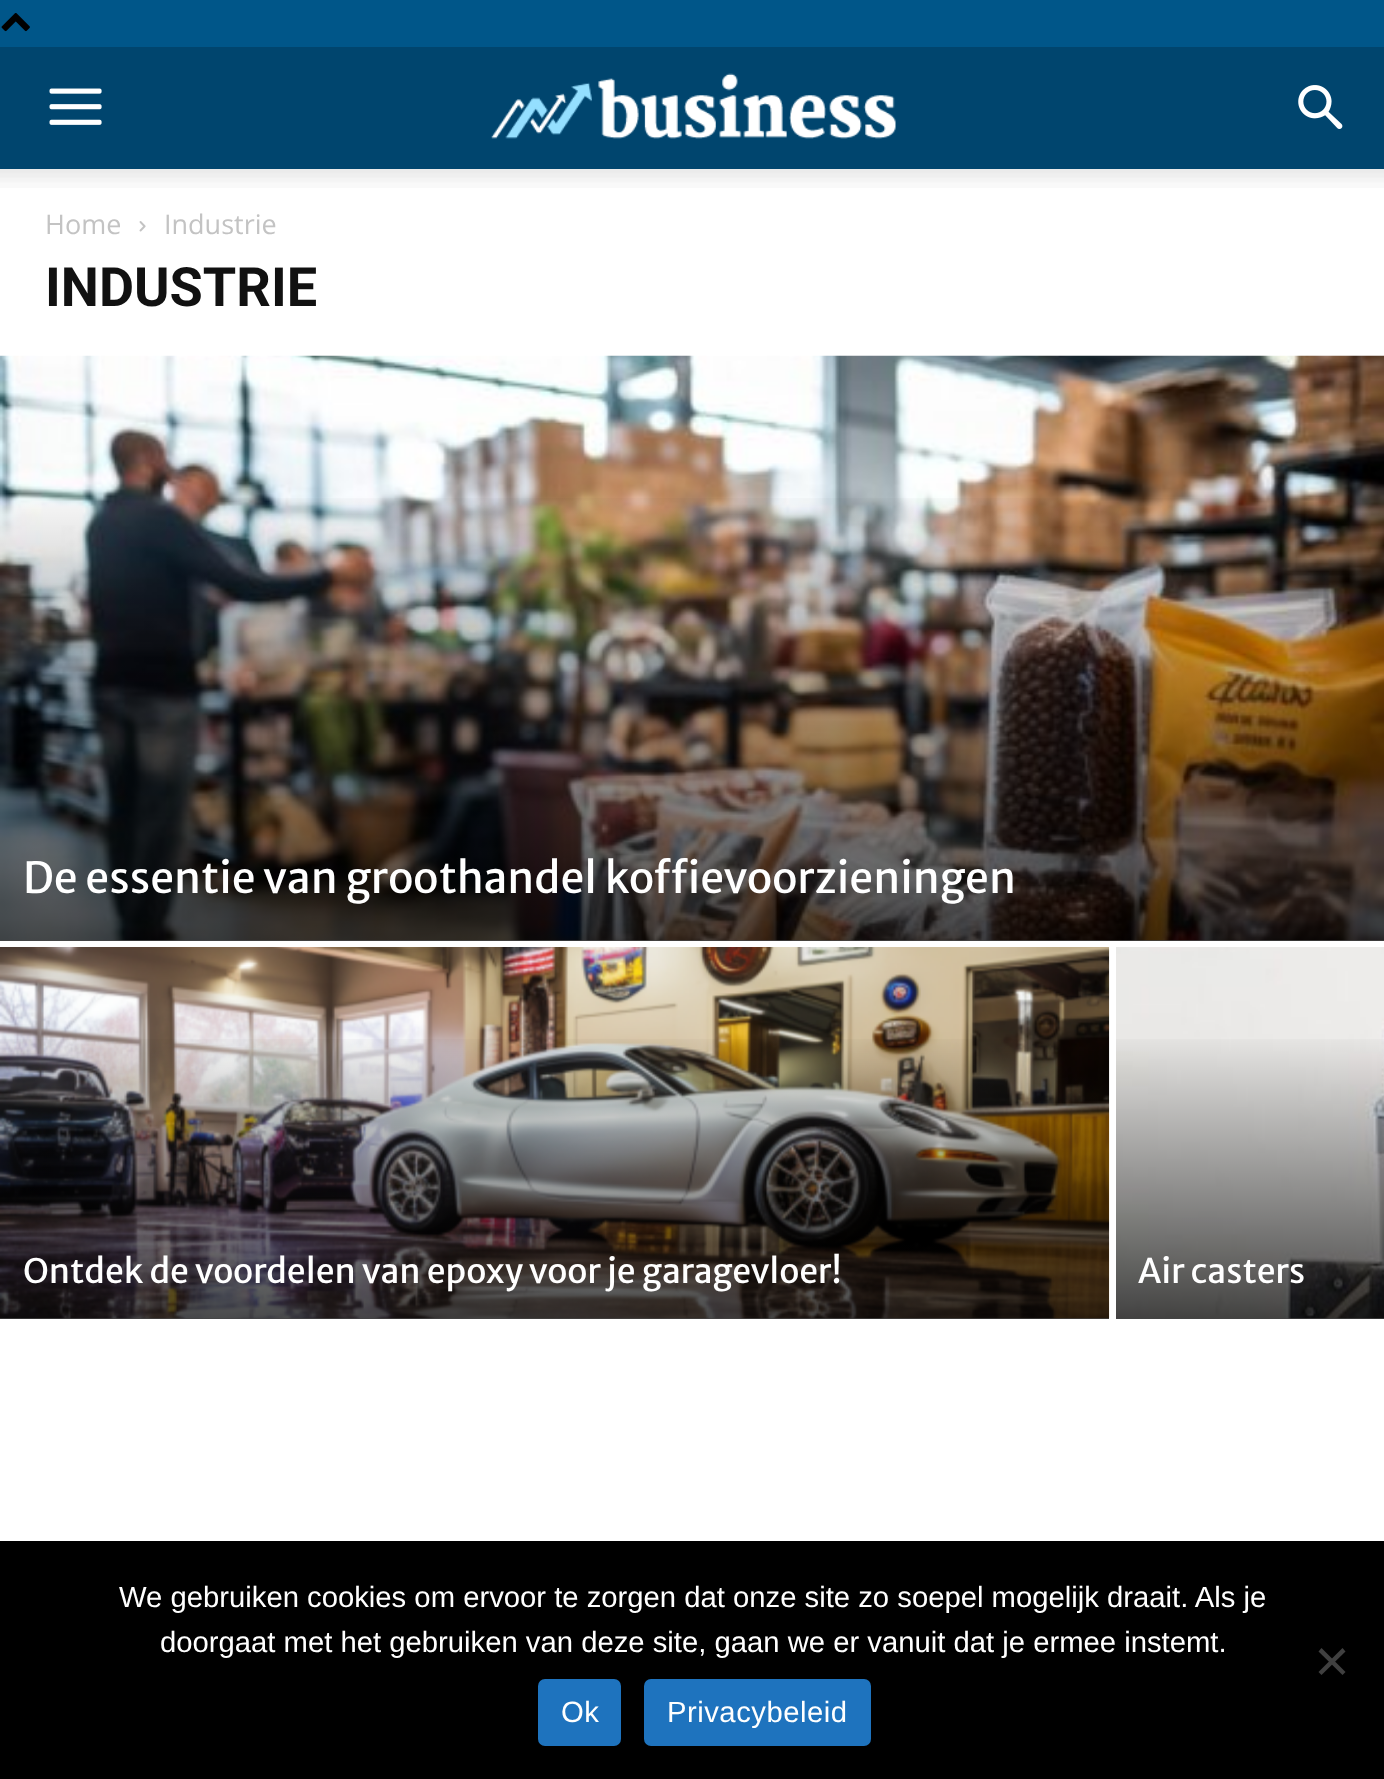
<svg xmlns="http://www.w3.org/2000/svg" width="1384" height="1779">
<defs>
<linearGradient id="g1" gradientUnits="userSpaceOnUse" x1="693" y1="180" x2="693" y2="941"><stop offset="0.4" stop-color="#000" stop-opacity="0"/><stop offset="1" stop-color="#000" stop-opacity="0.7"/></linearGradient>
<linearGradient id="g2" gradientUnits="userSpaceOnUse" x1="555" y1="837" x2="555" y2="1319"><stop offset="0.4" stop-color="#000" stop-opacity="0"/><stop offset="1" stop-color="#000" stop-opacity="0.7"/></linearGradient>
<linearGradient id="g3" gradientUnits="userSpaceOnUse" x1="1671" y1="837" x2="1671" y2="1319"><stop offset="0.4" stop-color="#000" stop-opacity="0"/><stop offset="1" stop-color="#000" stop-opacity="0.7"/></linearGradient>
</defs>
<rect width="100%" height="100%" fill="#fff"/>
<rect width="1384" height="47" fill="#005689"/>
<image x="1" y="13" width="29" height="19" href="media/1.png"/>
<rect y="47" width="1384" height="122" fill="#00456e"/>
<image x="49" y="88" width="53" height="37" href="media/2.png"/>
<image x="491" y="73" width="405" height="66" href="media/3.png"/>
<image x="1298" y="85" width="45" height="44" href="media/4.png"/>
<image x="0" y="169" width="1384" height="19" href="media/5.png"/>
<text x="45" y="234" style="font-family:Open Sans;font-size:27px;fill:#c3c3c3">Home</text>
<image x="139" y="221" width="7" height="11" href="media/6.png"/>
<text x="164" y="234" style="font-family:Open Sans;font-size:27px;fill:#c3c3c3">Industrie</text>
<text x="45" y="306" style="font-family:Roboto;font-size:54px;font-weight:bold;fill:#111">INDUSTRIE</text>
<rect y="940" width="1384" height="1" fill="#e5e5e5"/>
<image x="0" y="355" width="1384" height="586" href="media/7.png"/>
<rect y="498" width="1384" height="443" fill="url(#g1)"/>
<text x="23" y="893" style="font-family:Merriweather Sans;font-size:42.75px;fill:#fff">De essentie van groothandel koffievoorzieningen</text>
<rect y="1318" width="1109" height="1" fill="#e5e5e5"/>
<image x="0" y="947" width="1110" height="372" href="media/8.png"/>
<rect y="1039" width="1109" height="280" fill="url(#g2)"/>
<text x="23" y="1283" style="font-family:Merriweather Sans;font-size:33.75px;fill:#fff">Ontdek de voordelen van epoxy voor je garagevloer!</text>
<rect x="1116" y="1318" width="268" height="1" fill="#e5e5e5"/>
<image x="1116" y="947" width="268" height="372" href="media/9.png"/>
<rect x="1116" y="1039" width="268" height="280" fill="url(#g3)"/>
<text x="1138" y="1283" style="font-family:Merriweather Sans;font-size:33.75px;fill:#fff">Air casters</text>
<rect y="1541" width="1384" height="238" fill="#000"/>
<text x="119" y="1607" style="font-family:Liberation Sans;font-size:29.25px;fill:#fff">We gebruiken cookies om ervoor te zorgen dat onze site zo soepel mogelijk draait. Als je</text>
<text x="160" y="1652" style="font-family:Liberation Sans;font-size:29.25px;fill:#fff">doorgaat met het gebruiken van deze site, gaan we er vanuit dat je ermee instemt.</text>
<path d="M1342.5 1648l3 3.5l-24 23.5l-3-3z" fill="#404040"/>
<path d="M1318.5 1651.5l3-3.5l24 24l-3 3z" fill="#404040"/>
<rect x="538" y="1679" width="83" height="67" rx="7" fill="#1e73be"/>
<text x="561" y="1722" style="font-family:Liberation Sans;font-size:29.25px;letter-spacing:0.5px;fill:#fff">Ok</text>
<rect x="644" y="1679" width="227" height="67" rx="7" fill="#1e73be"/>
<text x="667" y="1722" style="font-family:Liberation Sans;font-size:29.25px;letter-spacing:0.5px;fill:#fff">Privacybeleid</text>
</svg>
